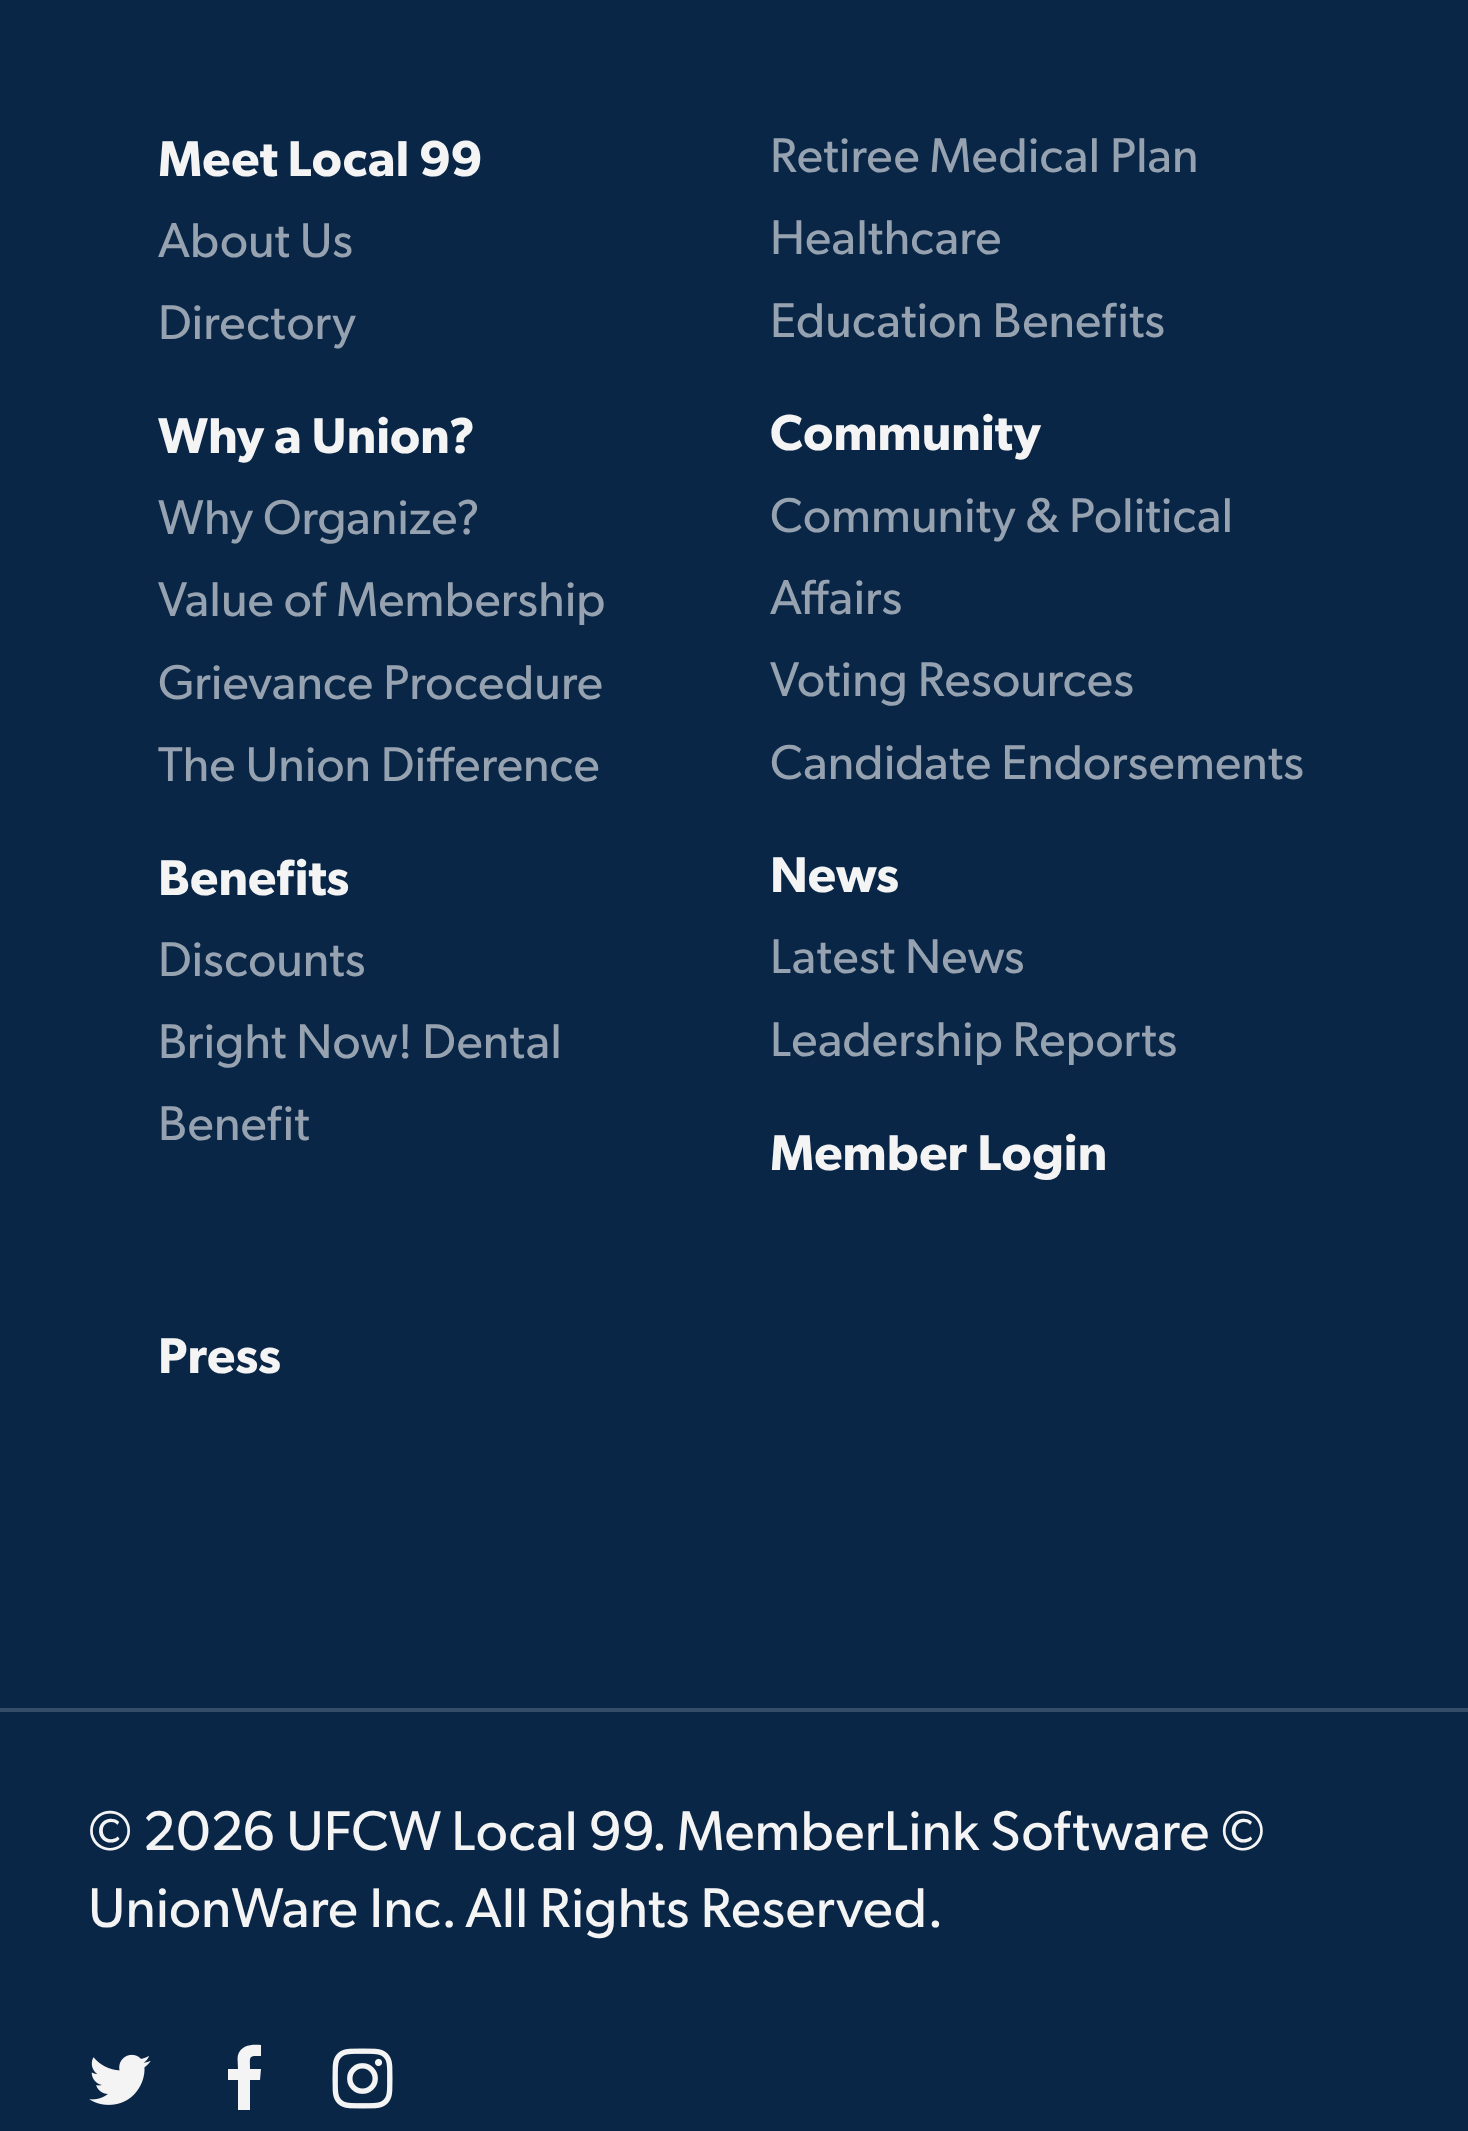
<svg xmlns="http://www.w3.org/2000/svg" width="1468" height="2131">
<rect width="100%" height="100%" fill="#092647"/>
<text x="770" y="172" style="font-family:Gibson;font-size:49px;fill:#96a2af">Retiree Medical Plan</text>
<text x="770" y="254" style="font-family:Gibson;font-size:49px;fill:#96a2af">Healthcare</text>
<text x="770" y="337" style="font-family:Gibson;font-size:49px;fill:#96a2af">Education Benefits</text>
<text x="158" y="976" style="font-family:Gibson;font-size:49px;fill:#96a2af">Discounts</text>
<text x="158" y="1058" style="font-family:Gibson;font-size:49px;fill:#96a2af">Bright Now! Dental</text>
<text x="158" y="1140" style="font-family:Gibson;font-size:49px;fill:#96a2af">Benefit</text>
<text x="158" y="895" style="font-family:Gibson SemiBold;font-size:50.5px;font-weight:600;fill:#f4f4f4">Benefits</text>
<text x="158" y="176" style="font-family:Gibson SemiBold;font-size:50.5px;font-weight:600;fill:#f4f4f4">Meet Local 99</text>
<text x="158" y="257" style="font-family:Gibson;font-size:49px;fill:#96a2af">About Us</text>
<text x="158" y="339" style="font-family:Gibson;font-size:49px;fill:#96a2af">Directory</text>
<text x="158" y="453" style="font-family:Gibson SemiBold;font-size:50.5px;font-weight:600;fill:#f4f4f4">Why a Union?</text>
<text x="158" y="534" style="font-family:Gibson;font-size:49px;fill:#96a2af">Why Organize?</text>
<text x="158" y="616" style="font-family:Gibson;font-size:49px;fill:#96a2af">Value of Membership</text>
<text x="158" y="699" style="font-family:Gibson;font-size:49px;fill:#96a2af">Grievance Procedure</text>
<text x="158" y="781" style="font-family:Gibson;font-size:49px;fill:#96a2af">The Union Difference</text>
<text x="770" y="450" style="font-family:Gibson SemiBold;font-size:50.5px;font-weight:600;fill:#f4f4f4">Community</text>
<text x="770" y="532" style="font-family:Gibson;font-size:49px;fill:#96a2af">Community &amp; Political</text>
<text x="770" y="614" style="font-family:Gibson;font-size:49px;fill:#96a2af">Affairs</text>
<text x="770" y="696" style="font-family:Gibson;font-size:49px;fill:#96a2af">Voting Resources</text>
<text x="770" y="779" style="font-family:Gibson;font-size:49px;fill:#96a2af">Candidate Endorsements</text>
<text x="770" y="892" style="font-family:Gibson SemiBold;font-size:50.5px;font-weight:600;fill:#f4f4f4">News</text>
<text x="770" y="973" style="font-family:Gibson;font-size:49px;fill:#96a2af">Latest News</text>
<text x="770" y="1056" style="font-family:Gibson;font-size:49px;fill:#96a2af">Leadership Reports</text>
<text x="770" y="1170" style="font-family:Gibson SemiBold;font-size:50.5px;font-weight:600;fill:#f4f4f4">Member Login</text>
<text x="158" y="1373" style="font-family:Gibson SemiBold;font-size:50.5px;font-weight:600;fill:#f4f4f4">Press</text>
<rect y="1708" width="1468" height="4" fill="#354d68"/>
<text x="88" y="1850" style="font-family:Gibson;font-size:56px;fill:#f4f4f4">© 2026 UFCW Local 99. MemberLink Software ©</text>
<text x="88" y="1927" style="font-family:Gibson;font-size:56px;fill:#f4f4f4">UnionWare Inc. All Rights Reserved.</text>
<image x="89" y="2054" width="62" height="51" href="media/1.png"/>
<path d="M261 2045v11c-13 0-11 0-11 13h11l-1 11h-10v30h-12v-30h-10v-11h10c0-5-1-10 0-14c3-10 14-11 23-10z" fill="#f4f4f4"/>
<image x="332" y="2048" width="61" height="61" href="media/2.png"/>
</svg>
